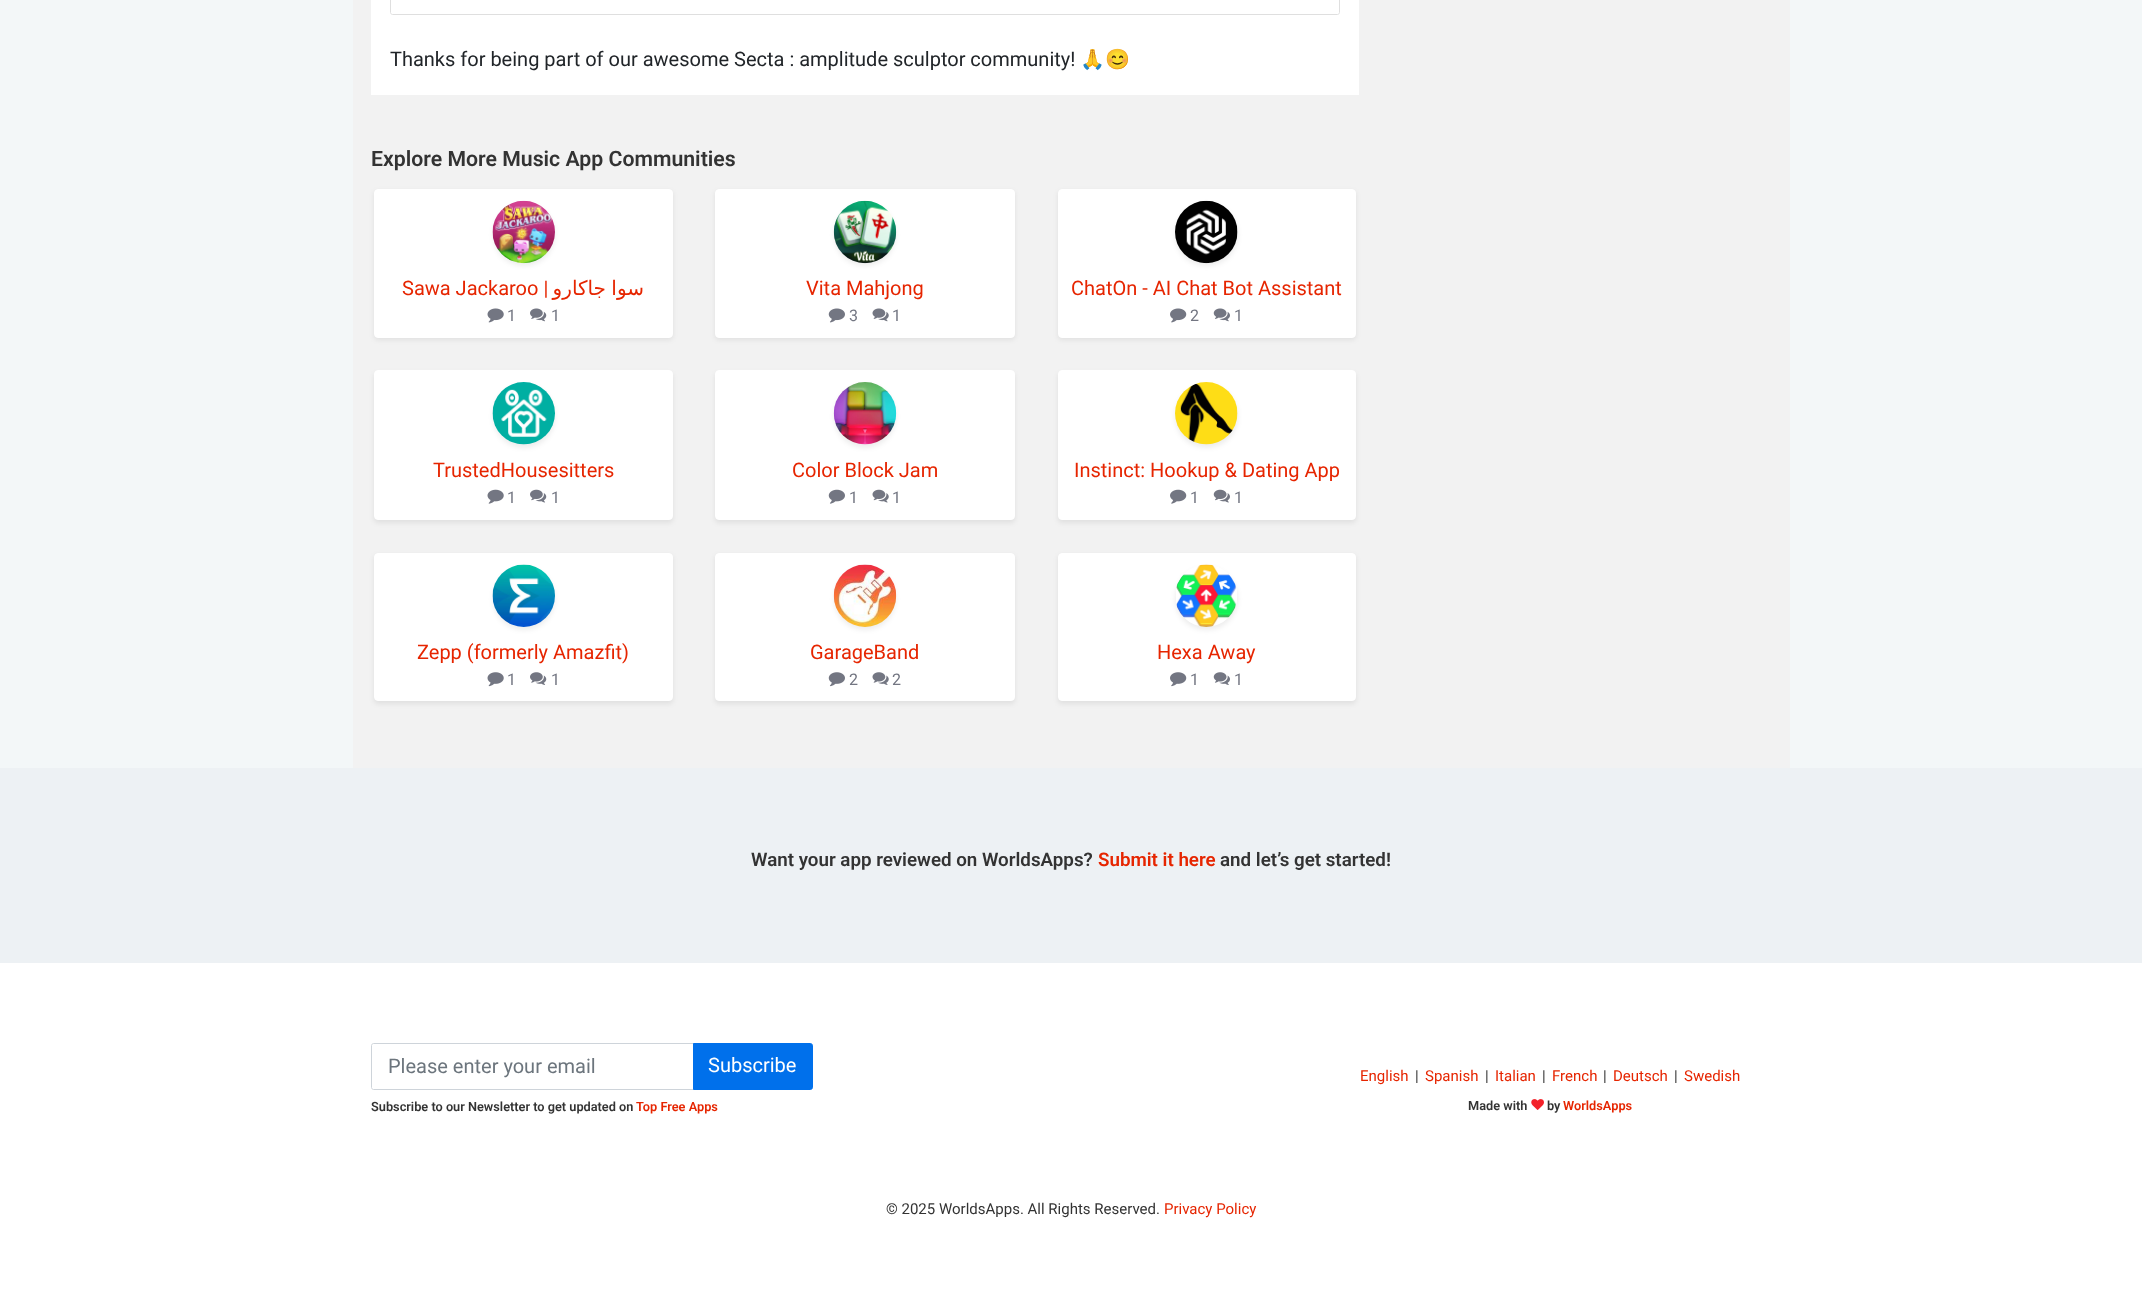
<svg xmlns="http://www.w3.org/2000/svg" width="2142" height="1300">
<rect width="100%" height="100%" fill="#f3f7f8"/>
<rect x="353" width="1437" height="768" fill="#f2f2f2"/>
<rect x="371" width="988" height="95" fill="#fff"/>
<path d="M390.5-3.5h949v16c0 1-1 2-2 2h-945c-1 0-2-1-2-2z" fill="none" stroke="#dfdfdf"/>
<text x="390" y="66" style="font-family:Roboto;font-size:20px;fill:#212529">Thanks for being part of our awesome Secta : amplitude sculptor community!</text>
<text x="1080" y="66" style="font-family:Noto Color Emoji;font-size:20px;fill:#212529">🙏😊</text>
<text x="371" y="166" style="font-family:Roboto;font-size:21.25px;font-weight:600;fill:#333">Explore More Music App Communities</text>
<rect x="374" y="191" width="299" height="149" rx="4" fill="#00000012" filter="blur(2.5px)"/>
<rect x="374.5" y="189.5" width="298" height="148" rx="3.5" fill="#fff" stroke="#fff"/>
<rect x="493" y="204" width="62" height="62" rx="31" fill="#00000012" filter="blur(2.5px)"/>
<image x="492" y="200" width="63" height="64" href="media/1.png"/>
<text x="402" y="295" style="font-family:Roboto;font-size:20px;fill:#e62500">Sawa Jackaroo |</text>
<text x="644" y="295" word-spacing="-1" style="font-family:DejaVu Sans;font-size:20px;direction:rtl;fill:#e62500">سوا جاكارو</text>
<image x="487" y="308" width="17" height="15" href="media/2.png"/>
<text x="507" y="321" style="font-family:Roboto;font-size:16px;fill:#737682">1</text>
<image x="530" y="308" width="17" height="14" href="media/3.png"/>
<text x="551" y="321" style="font-family:Roboto;font-size:16px;fill:#737682">1</text>
<rect x="715" y="191" width="300" height="149" rx="4" fill="#00000012" filter="blur(2.5px)"/>
<rect x="715.5" y="189.5" width="299" height="148" rx="3.5" fill="#fff" stroke="#fff"/>
<rect x="834" y="204" width="62" height="62" rx="31" fill="#00000012" filter="blur(2.5px)"/>
<image x="833" y="200" width="64" height="64" href="media/4.png"/>
<text x="806" y="295" style="font-family:Roboto;font-size:20px;fill:#e62500">Vita Mahjong</text>
<image x="828" y="308" width="17" height="15" href="media/5.png"/>
<text x="849" y="321" style="font-family:Roboto;font-size:16px;fill:#737682">3</text>
<image x="872" y="308" width="17" height="14" href="media/6.png"/>
<text x="892" y="321" style="font-family:Roboto;font-size:16px;fill:#737682">1</text>
<rect x="1058" y="191" width="298" height="149" rx="4" fill="#00000012" filter="blur(2.5px)"/>
<rect x="1058.5" y="189.5" width="297" height="148" rx="3.5" fill="#fff" stroke="#fff"/>
<rect x="1175" y="204" width="63" height="62" rx="31" fill="#00000012" filter="blur(2.5px)"/>
<image x="1175" y="200" width="63" height="64" href="media/7.png"/>
<text x="1071" y="295" style="font-family:Roboto;font-size:20px;fill:#e62500">ChatOn - AI Chat Bot Assistant</text>
<image x="1170" y="308" width="17" height="15" href="media/8.png"/>
<text x="1190" y="321" style="font-family:Roboto;font-size:16px;fill:#737682">2</text>
<image x="1213" y="308" width="17" height="14" href="media/9.png"/>
<text x="1234" y="321" style="font-family:Roboto;font-size:16px;fill:#737682">1</text>
<rect x="374" y="373" width="299" height="150" rx="4" fill="#00000012" filter="blur(2.5px)"/>
<rect x="374.5" y="370.5" width="298" height="149" rx="3.5" fill="#fff" stroke="#fff"/>
<rect x="493" y="385" width="62" height="63" rx="31" fill="#00000012" filter="blur(2.5px)"/>
<image x="492" y="382" width="63" height="63" href="media/10.png"/>
<text x="433" y="477" style="font-family:Roboto;font-size:20px;fill:#e62500">TrustedHousesitters</text>
<image x="487" y="489" width="17" height="15" href="media/11.png"/>
<text x="507" y="503" style="font-family:Roboto;font-size:16px;fill:#737682">1</text>
<image x="530" y="489" width="17" height="14" href="media/12.png"/>
<text x="551" y="503" style="font-family:Roboto;font-size:16px;fill:#737682">1</text>
<rect x="715" y="373" width="300" height="150" rx="4" fill="#00000012" filter="blur(2.5px)"/>
<rect x="715.5" y="370.5" width="299" height="149" rx="3.5" fill="#fff" stroke="#fff"/>
<rect x="834" y="385" width="62" height="63" rx="31" fill="#00000012" filter="blur(2.5px)"/>
<image x="833" y="382" width="64" height="63" href="media/13.png"/>
<text x="792" y="477" style="font-family:Roboto;font-size:20px;fill:#e62500">Color Block Jam</text>
<image x="828" y="489" width="17" height="15" href="media/14.png"/>
<text x="849" y="503" style="font-family:Roboto;font-size:16px;fill:#737682">1</text>
<image x="872" y="489" width="17" height="14" href="media/15.png"/>
<text x="892" y="503" style="font-family:Roboto;font-size:16px;fill:#737682">1</text>
<rect x="1058" y="373" width="298" height="150" rx="4" fill="#00000012" filter="blur(2.5px)"/>
<rect x="1058.5" y="370.5" width="297" height="149" rx="3.5" fill="#fff" stroke="#fff"/>
<rect x="1175" y="385" width="63" height="63" rx="31.5" fill="#00000012" filter="blur(2.5px)"/>
<image x="1175" y="382" width="63" height="63" href="media/16.png"/>
<text x="1074" y="477" style="font-family:Roboto;font-size:20px;fill:#e62500">Instinct: Hookup &amp; Dating App</text>
<image x="1170" y="489" width="17" height="15" href="media/17.png"/>
<text x="1190" y="503" style="font-family:Roboto;font-size:16px;fill:#737682">1</text>
<image x="1213" y="489" width="17" height="14" href="media/18.png"/>
<text x="1234" y="503" style="font-family:Roboto;font-size:16px;fill:#737682">1</text>
<rect x="374" y="555" width="299" height="149" rx="4" fill="#00000012" filter="blur(2.5px)"/>
<rect x="374.5" y="553.5" width="298" height="147" rx="3.5" fill="#fff" stroke="#fff"/>
<rect x="493" y="568" width="62" height="62" rx="31" fill="#00000012" filter="blur(2.5px)"/>
<image x="492" y="564" width="63" height="63" href="media/19.png"/>
<text x="417" y="659" style="font-family:Roboto;font-size:20px;fill:#e62500">Zepp (formerly Amazfit)</text>
<image x="487" y="672" width="17" height="15" href="media/20.png"/>
<text x="507" y="685" style="font-family:Roboto;font-size:16px;fill:#737682">1</text>
<image x="530" y="672" width="17" height="13" href="media/21.png"/>
<text x="551" y="685" style="font-family:Roboto;font-size:16px;fill:#737682">1</text>
<rect x="715" y="555" width="300" height="149" rx="4" fill="#00000012" filter="blur(2.5px)"/>
<rect x="715.5" y="553.5" width="299" height="147" rx="3.5" fill="#fff" stroke="#fff"/>
<rect x="834" y="568" width="62" height="62" rx="31" fill="#00000012" filter="blur(2.5px)"/>
<image x="833" y="564" width="64" height="63" href="media/22.png"/>
<text x="810" y="659" style="font-family:Roboto;font-size:20px;fill:#e62500">GarageBand</text>
<image x="828" y="672" width="17" height="15" href="media/23.png"/>
<text x="849" y="685" style="font-family:Roboto;font-size:16px;fill:#737682">2</text>
<image x="872" y="672" width="17" height="13" href="media/24.png"/>
<text x="892" y="685" style="font-family:Roboto;font-size:16px;fill:#737682">2</text>
<rect x="1058" y="555" width="298" height="149" rx="4" fill="#00000012" filter="blur(2.5px)"/>
<rect x="1058.5" y="553.5" width="297" height="147" rx="3.5" fill="#fff" stroke="#fff"/>
<rect x="1175" y="568" width="63" height="62" rx="31" fill="#00000012" filter="blur(2.5px)"/>
<image x="1176" y="564" width="61" height="63" href="media/25.png"/>
<text x="1157" y="659" style="font-family:Roboto;font-size:20px;fill:#e62500">Hexa Away</text>
<image x="1170" y="672" width="17" height="15" href="media/26.png"/>
<text x="1190" y="685" style="font-family:Roboto;font-size:16px;fill:#737682">1</text>
<image x="1213" y="672" width="17" height="13" href="media/27.png"/>
<text x="1234" y="685" style="font-family:Roboto;font-size:16px;fill:#737682">1</text>
<rect y="768" width="2142" height="195" fill="#edf1f4"/>
<text x="751" y="866" style="font-family:Roboto;font-size:18.75px;font-weight:600;fill:#333">Want your app reviewed on WorldsApps?</text>
<text x="1098" y="866" style="font-family:Roboto;font-size:18.75px;font-weight:600;fill:#e62500">Submit it here</text>
<text x="1220" y="866" style="font-family:Roboto;font-size:18.75px;font-weight:600;fill:#333">and let’s get started!</text>
<rect y="963" width="2142" height="337" fill="#fff"/>
<path d="M373.5 1043.5h320v46h-320c-1 0-2-1-2-2v-42c0-1 1-2 2-2z" fill="none" stroke="#ced4da"/>
<text x="388" y="1073" style="font-family:Roboto;font-size:20px;fill:#6c757d">Please enter your email</text>
<path d="M693.5 1043.5h117c1 0 2 1 2 2v42c0 1-1 2-2 2h-117z" fill="#0070eb" stroke="#0070eb"/>
<text x="708" y="1072" style="font-family:Roboto;font-size:20px;fill:#fff">Subscribe</text>
<text x="371" y="1111" style="font-family:Roboto;font-size:12.75px;font-weight:600;fill:#333">Subscribe to our Newsletter to get updated on</text>
<text x="636" y="1111" style="font-family:Roboto;font-size:12.75px;font-weight:600;fill:#e62500">Top Free Apps</text>
<text x="1360" y="1081" style="font-family:Roboto;font-size:15px;fill:#e62500">English</text>
<text x="1415" y="1081" style="font-family:Roboto;font-size:15px;fill:#333">|</text>
<text x="1425" y="1081" style="font-family:Roboto;font-size:15px;fill:#e62500">Spanish</text>
<text x="1485" y="1081" style="font-family:Roboto;font-size:15px;fill:#333">|</text>
<text x="1495" y="1081" style="font-family:Roboto;font-size:15px;fill:#e62500">Italian</text>
<text x="1542" y="1081" style="font-family:Roboto;font-size:15px;fill:#333">|</text>
<text x="1552" y="1081" style="font-family:Roboto;font-size:15px;fill:#e62500">French</text>
<text x="1603" y="1081" style="font-family:Roboto;font-size:15px;fill:#333">|</text>
<text x="1613" y="1081" style="font-family:Roboto;font-size:15px;fill:#e62500">Deutsch</text>
<text x="1674" y="1081" style="font-family:Roboto;font-size:15px;fill:#333">|</text>
<text x="1684" y="1081" style="font-family:Roboto;font-size:15px;fill:#e62500">Swedish</text>
<text x="1468" y="1110" style="font-family:Roboto;font-size:12.75px;font-weight:600;fill:#333">Made with</text>
<image x="1531" y="1099" width="13" height="11" href="media/28.png"/>
<text x="1547" y="1110" style="font-family:Roboto;font-size:12.75px;font-weight:600;fill:#333">by</text>
<text x="1563" y="1110" style="font-family:Roboto;font-size:12.75px;font-weight:600;fill:#e62500">WorldsApps</text>
<text x="886" y="1214" style="font-family:Roboto;font-size:15px;fill:#333">© 2025 WorldsApps. All Rights Reserved.</text>
<text x="1164" y="1214" style="font-family:Roboto;font-size:15px;fill:#e62500">Privacy Policy</text>
</svg>
